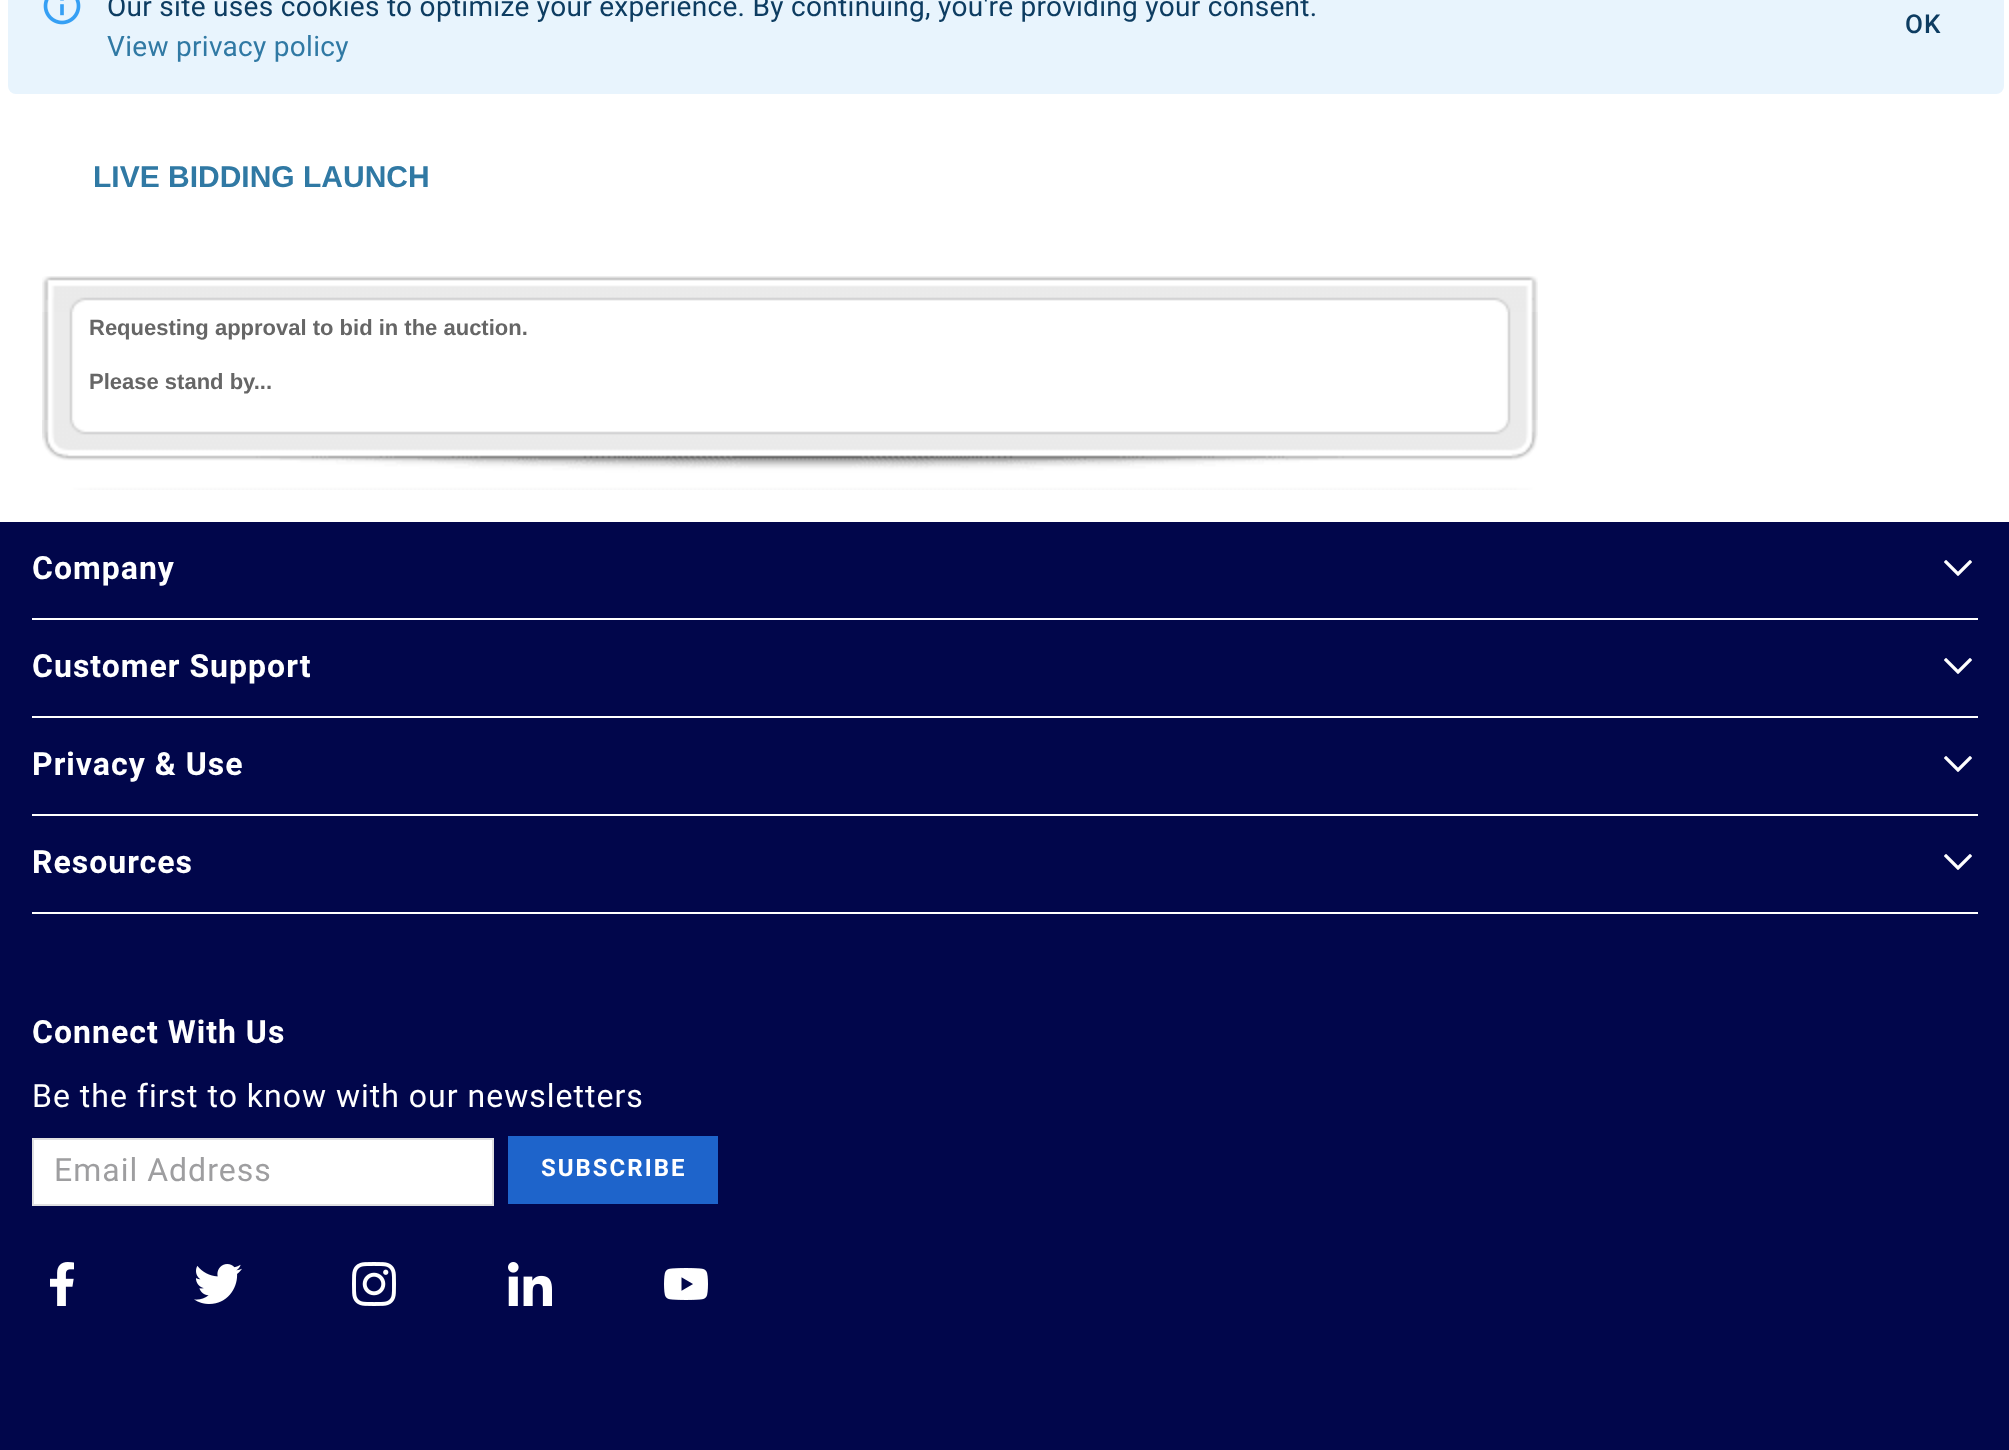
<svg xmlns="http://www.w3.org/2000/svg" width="2009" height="1450">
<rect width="100%" height="100%" fill="#fff"/>
<rect x="8" y="-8" width="1996" height="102" rx="8" fill="#e8f4fd"/>
<image x="43" y="0" width="38" height="25" href="media/1.png"/>
<text x="107" y="16" style="font-family:Roboto;font-size:28px;letter-spacing:0.3px;fill:#0d3c61">Our site uses cookies to optimize your experience. By continuing, you're providing your consent.</text>
<text x="107" y="56" style="font-family:Roboto;font-size:28px;letter-spacing:0.3px;fill:#3079a4">View privacy policy</text>
<text x="1905" y="33" style="font-family:Roboto;font-size:26px;font-weight:500;letter-spacing:1px;fill:#0d3c61">OK</text>
<text x="93" y="187" style="font-family:Liberation Sans;font-size:30px;font-weight:bold;fill:#3079a4">LIVE BIDDING LAUNCH</text>
<image x="42" y="276" width="1496" height="36" href="media/2.png"/>
<image x="42" y="312" width="1496" height="108" href="media/3.png"/>
<text x="89" y="335" style="font-family:Liberation Sans;font-size:22px;font-weight:bold;fill:#666">Requesting approval to bid in the auction.</text>
<text x="89" y="389" style="font-family:Liberation Sans;font-size:22px;font-weight:bold;fill:#666">Please stand by...</text>
<image x="42" y="420" width="1496" height="70" href="media/4.png"/>
<rect y="522" width="2009" height="928" fill="#01064b"/>
<rect x="32" y="618" width="1946" height="2" fill="#fff"/>
<text x="32" y="579" style="font-family:Roboto;font-size:32px;font-weight:bold;letter-spacing:1px;fill:#fff">Company</text>
<image x="1944" y="560" width="28" height="16" href="media/5.png"/>
<rect x="32" y="716" width="1946" height="2" fill="#fff"/>
<text x="32" y="677" style="font-family:Roboto;font-size:32px;font-weight:bold;letter-spacing:1px;fill:#fff">Customer Support</text>
<image x="1944" y="658" width="28" height="16" href="media/5.png"/>
<rect x="32" y="814" width="1946" height="2" fill="#fff"/>
<text x="32" y="775" style="font-family:Roboto;font-size:32px;font-weight:bold;letter-spacing:1px;fill:#fff">Privacy &amp; Use</text>
<image x="1944" y="756" width="28" height="16" href="media/5.png"/>
<rect x="32" y="912" width="1946" height="2" fill="#fff"/>
<text x="32" y="873" style="font-family:Roboto;font-size:32px;font-weight:bold;letter-spacing:1px;fill:#fff">Resources</text>
<image x="1944" y="854" width="28" height="16" href="media/5.png"/>
<text x="32" y="1043" style="font-family:Roboto;font-size:32px;font-weight:bold;letter-spacing:1px;fill:#fff">Connect With Us</text>
<text x="32" y="1107" style="font-family:Roboto;font-size:32px;letter-spacing:1px;fill:#fff">Be the first to know with our newsletters</text>
<rect x="33" y="1139" width="460" height="66" fill="#fff" stroke="#e0e0e1" stroke-width="2"/>
<text x="54" y="1181" style="font-family:Roboto;font-size:32px;letter-spacing:1px;fill:#9e9ea0">Email Address</text>
<rect x="510" y="1138" width="206" height="64" fill="#1e64cb"/>
<rect x="509" y="1137" width="208" height="66" fill="none" stroke="#1e64cb" stroke-width="2"/>
<text x="541" y="1176" style="font-family:Roboto;font-size:24px;font-weight:bold;letter-spacing:2px;fill:#fff">SUBSCRIBE</text>
<image x="50" y="1262" width="24" height="44" href="media/6.png"/>
<image x="194" y="1264" width="48" height="40" href="media/7.png"/>
<image x="352" y="1262" width="44" height="44" href="media/8.png"/>
<image x="508" y="1262" width="44" height="44" href="media/9.png"/>
<image x="664" y="1268" width="44" height="32" href="media/10.png"/>
</svg>
